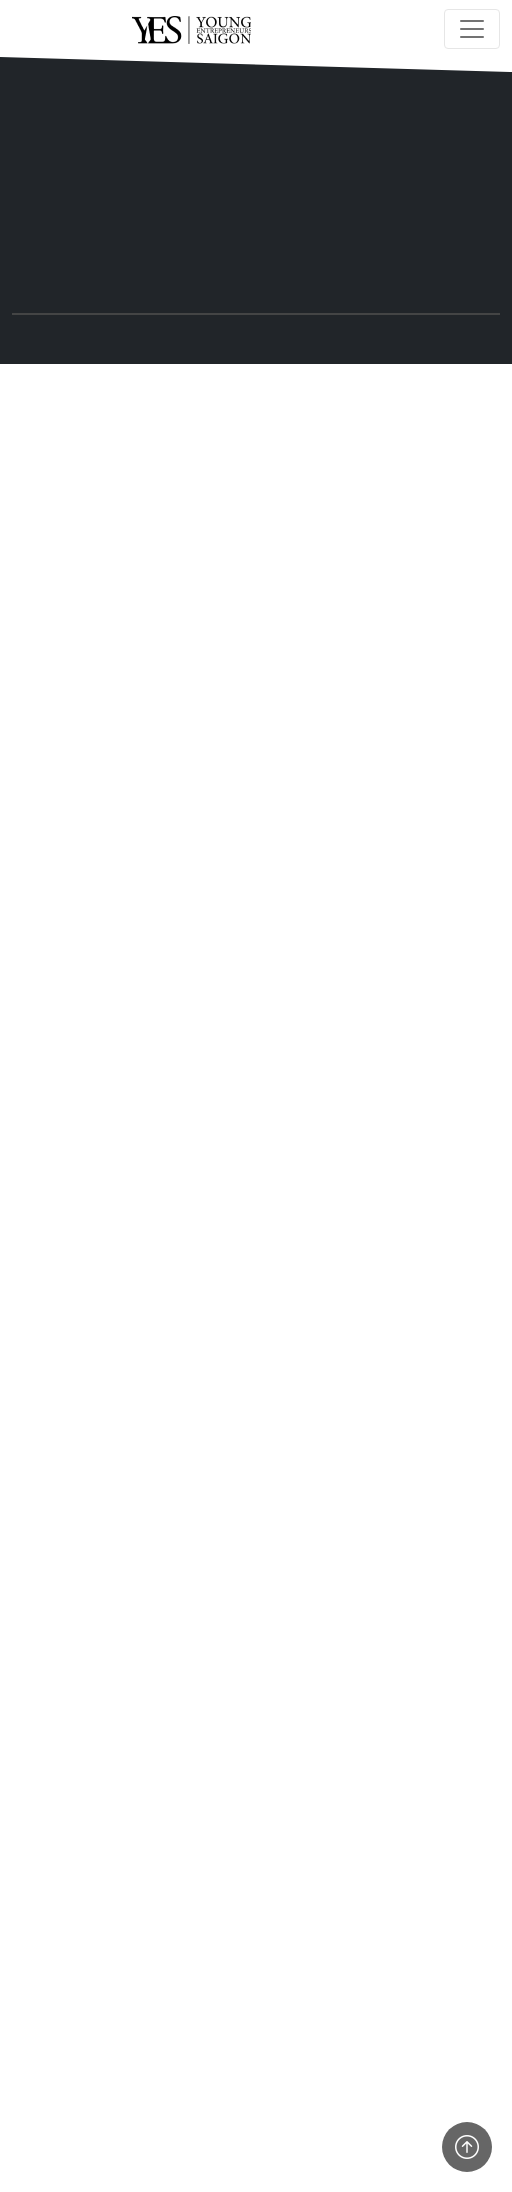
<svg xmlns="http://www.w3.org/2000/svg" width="512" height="2192">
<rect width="100%" height="100%" fill="#fff"/>
<image x="132" y="16" width="119" height="28" href="media/1.png"/>
<rect x="444.5" y="9.5" width="55" height="39" rx="3.5" fill="none" stroke="#e6e6e6"/>
<image x="460" y="20" width="24" height="18" href="media/2.png"/>
<path d="M0 57v307h512v-292z" fill="#212529"/>
<rect x="12" y="313" width="488" height="2" fill="#444545"/>
<circle cx="467" cy="2147" r="25" fill="#666"/>
<image x="455" y="2135" width="24" height="24" href="media/3.png"/>
</svg>
